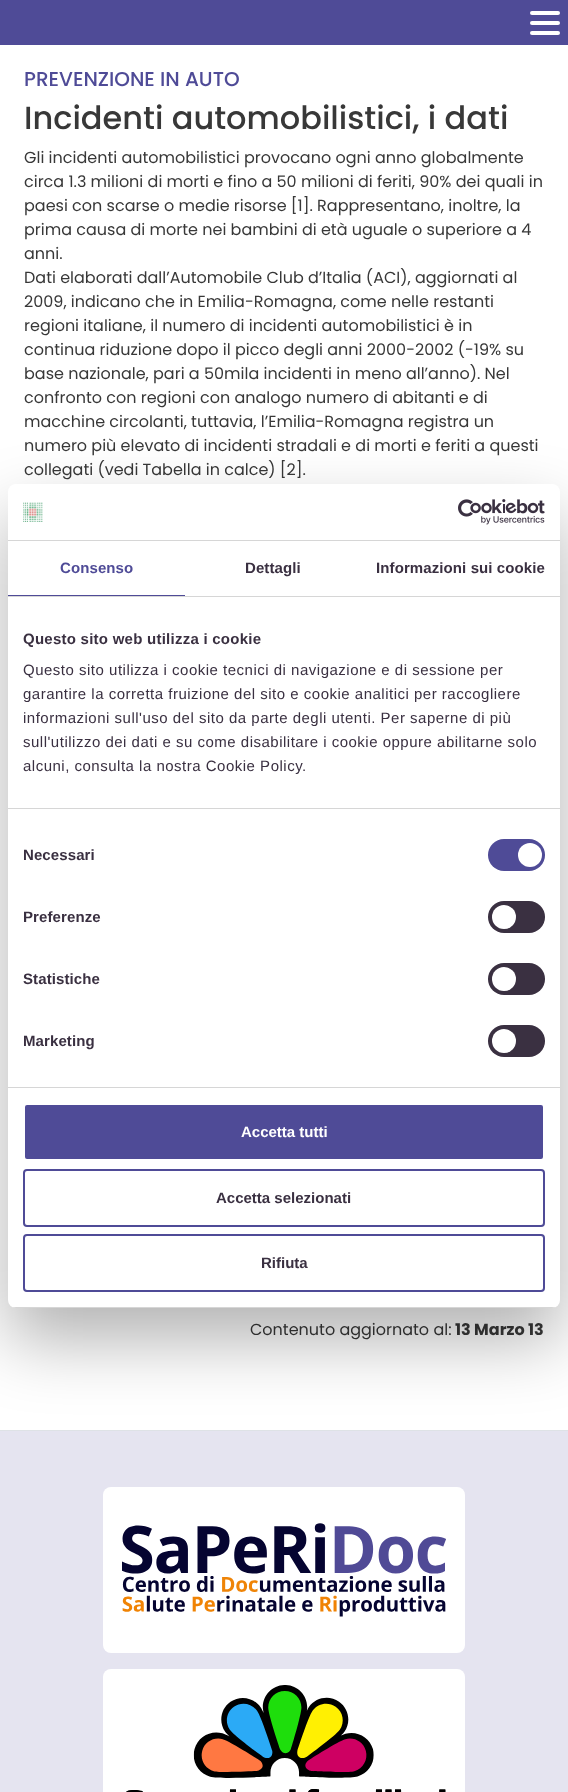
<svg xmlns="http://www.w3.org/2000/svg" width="568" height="1792">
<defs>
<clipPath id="clip1"><rect x="8" y="484" width="552" height="824" rx="8"/></clipPath>
</defs>
<rect width="100%" height="100%" fill="#fff"/>
<rect width="568" height="45" fill="#4f4b97"/>
<rect x="530" y="11" width="30" height="4" rx="2" fill="#fff"/>
<rect x="530" y="21" width="30" height="4" rx="2" fill="#fff"/>
<rect x="530" y="31" width="30" height="4" rx="2" fill="#fff"/>
<text x="24" y="86" style="font-family:Poppins;font-size:20px;font-weight:500;fill:#4f4b97">PREVENZIONE IN AUTO</text>
<text x="24" y="129" style="font-family:Poppins;font-size:32px;font-weight:500;fill:#383838">Incidenti automobilistici, i dati</text>
<text x="24" y="163" style="font-family:Poppins;font-size:16px;fill:#383838">Gli incidenti automobilistici provocano ogni anno globalmente</text>
<text x="24" y="187" style="font-family:Poppins;font-size:16px;fill:#383838">circa 1.3 milioni di morti e fino a 50 milioni di feriti, 90% dei quali in</text>
<text x="24" y="211" style="font-family:Poppins;font-size:16px;fill:#383838">paesi con scarse o medie risorse [1]. Rappresentano, inoltre, la</text>
<text x="24" y="235" style="font-family:Poppins;font-size:16px;fill:#383838">prima causa di morte nei bambini di età uguale o superiore a 4</text>
<text x="24" y="259" style="font-family:Poppins;font-size:16px;fill:#383838">anni.</text>
<text x="24" y="283" style="font-family:Poppins;font-size:16px;fill:#383838">Dati elaborati dall’Automobile Club d’Italia (ACI), aggiornati al</text>
<text x="24" y="307" style="font-family:Poppins;font-size:16px;fill:#383838">2009, indicano che in Emilia-Romagna, come nelle restanti</text>
<text x="24" y="331" style="font-family:Poppins;font-size:16px;fill:#383838">regioni italiane, il numero di incidenti automobilistici è in</text>
<text x="24" y="355" style="font-family:Poppins;font-size:16px;fill:#383838">continua riduzione dopo il picco degli anni 2000-2002 (-19% su</text>
<text x="24" y="379" style="font-family:Poppins;font-size:16px;fill:#383838">base nazionale, pari a 50mila incidenti in meno all’anno). Nel</text>
<text x="24" y="403" style="font-family:Poppins;font-size:16px;fill:#383838">confronto con regioni con analogo numero di abitanti e di</text>
<text x="24" y="427" style="font-family:Poppins;font-size:16px;fill:#383838">macchine circolanti, tuttavia, l’Emilia-Romagna registra un</text>
<text x="24" y="451" style="font-family:Poppins;font-size:16px;fill:#383838">numero più elevato di incidenti stradali e di morti e feriti a questi</text>
<text x="24" y="475" style="font-family:Poppins;font-size:16px;fill:#383838">collegati (vedi Tabella in calce) [2].</text>
<text x="250" y="1335" style="font-family:Poppins;font-size:16px;fill:#383838">Contenuto aggiornato al:</text>
<text x="455" y="1335" style="font-family:Poppins;font-size:16px;font-weight:bold;fill:#383838">13 Marzo 13</text>
<rect y="1431" width="568" height="361" fill="#e5e4f0"/>
<rect y="1430" width="568" height="1" fill="#dee2e6"/>
<rect x="8" y="516" width="552" height="824" rx="8" fill="#0000004d" filter="blur(34px)"/>
<rect x="8" y="484" width="552" height="824" rx="8" fill="#fff"/>
<rect x="8" y="540" width="552" height="1" fill="#d6d6d6"/>
<image x="23" y="502" width="20" height="20" href="media/1.png"/>
<image x="458" y="499" width="87" height="26" href="media/2.png"/>
<rect x="8" y="596" width="552" height="1" fill="#d6d6d6"/>
<rect x="8" y="595" width="177" height="1" fill="#4f4b97"/>
<text x="60" y="573" style="font-family:Liberation Sans;font-size:15px;font-weight:bold;letter-spacing:0.1px;fill:#4f4b97">Consenso</text>
<text x="245" y="573" style="font-family:Liberation Sans;font-size:15px;font-weight:bold;letter-spacing:0.1px;fill:#3a3041">Dettagli</text>
<text x="376" y="573" style="font-family:Liberation Sans;font-size:15px;font-weight:bold;letter-spacing:0.1px;fill:#3a3041">Informazioni sui cookie</text>
<rect x="8" y="808" width="552" height="1" fill="#d6d6d6"/>
<text x="23" y="644" style="font-family:Liberation Sans;font-size:15px;font-weight:bold;letter-spacing:0.25px;fill:#3a3041">Questo sito web utilizza i cookie</text>
<text x="23" y="675" style="font-family:Liberation Sans;font-size:15px;letter-spacing:0.5px;fill:#3a3041">Questo sito utilizza i cookie tecnici di navigazione e di sessione per</text>
<text x="23" y="699" style="font-family:Liberation Sans;font-size:15px;letter-spacing:0.5px;fill:#3a3041">garantire la corretta fruizione del sito e cookie analitici per raccogliere</text>
<text x="23" y="723" style="font-family:Liberation Sans;font-size:15px;letter-spacing:0.5px;fill:#3a3041">informazioni sull'uso del sito da parte degli utenti. Per saperne di più</text>
<text x="23" y="747" style="font-family:Liberation Sans;font-size:15px;letter-spacing:0.5px;fill:#3a3041">sull'utilizzo dei dati e su come disabilitare i cookie oppure abilitarne solo</text>
<text x="23" y="771" style="font-family:Liberation Sans;font-size:15px;letter-spacing:0.5px;fill:#3a3041">alcuni, consulta la nostra Cookie Policy.</text>
<rect x="8" y="1087" width="552" height="1" fill="#d6d6d6"/>
<text x="23" y="860" style="font-family:Liberation Sans;font-size:15px;font-weight:bold;letter-spacing:0.1px;fill:#3a3041">Necessari</text>
<rect x="488" y="839" width="57" height="32" rx="16" fill="#4f4b97"/>
<circle cx="530" cy="855" r="12" fill="#fff"/>
<text x="23" y="922" style="font-family:Liberation Sans;font-size:15px;font-weight:bold;letter-spacing:0.1px;fill:#3a3041">Preferenze</text>
<rect x="488" y="901" width="57" height="32" rx="16" fill="#3a3041"/>
<circle cx="504" cy="917" r="12" fill="#fff"/>
<text x="23" y="984" style="font-family:Liberation Sans;font-size:15px;font-weight:bold;letter-spacing:0.1px;fill:#3a3041">Statistiche</text>
<rect x="488" y="963" width="57" height="32" rx="16" fill="#3a3041"/>
<circle cx="504" cy="979" r="12" fill="#fff"/>
<text x="23" y="1046" style="font-family:Liberation Sans;font-size:15px;font-weight:bold;letter-spacing:0.1px;fill:#3a3041">Marketing</text>
<rect x="488" y="1025" width="57" height="32" rx="16" fill="#3a3041"/>
<circle cx="504" cy="1041" r="12" fill="#fff"/>
<g clip-path="url(#clip1)">
<rect x="8" y="1307" width="552" height="1" fill="#d6d6d6"/>
</g>
<rect x="24" y="1104" width="520" height="56" rx="3" fill="#4f4b97" stroke="#fff" stroke-width="2"/>
<text x="241" y="1137" style="font-family:Liberation Sans;font-size:15px;font-weight:bold;fill:#fff">Accetta tutti</text>
<rect x="24" y="1170" width="520" height="56" rx="3" fill="none" stroke="#4f4b97" stroke-width="2"/>
<text x="216" y="1203" style="font-family:Liberation Sans;font-size:15px;font-weight:bold;fill:#3a3041">Accetta selezionati</text>
<rect x="24" y="1235" width="520" height="56" rx="3" fill="none" stroke="#4f4b97" stroke-width="2"/>
<text x="261" y="1268" style="font-family:Liberation Sans;font-size:15px;font-weight:bold;fill:#3a3041">Rifiuta</text>
<rect x="103" y="1487" width="362" height="166" rx="8" fill="#fff"/>
<image x="122" y="1523" width="324" height="94" href="media/3.png"/>
<rect x="103" y="1669" width="362" height="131" rx="8" fill="#fff"/>
<image x="126" y="1685" width="320" height="107" href="media/4.png"/>
</svg>
